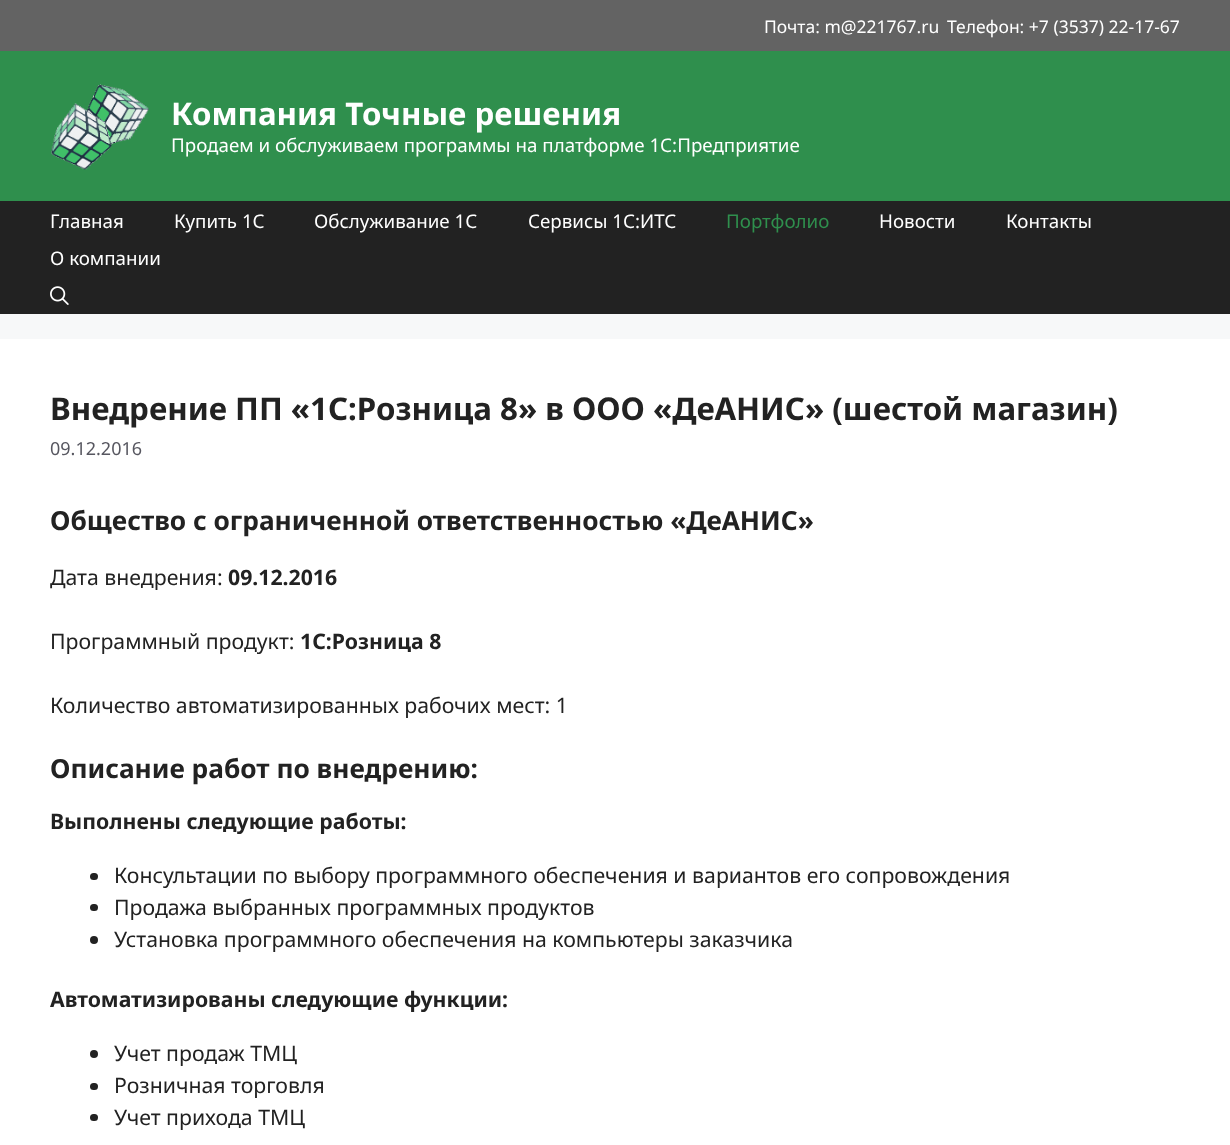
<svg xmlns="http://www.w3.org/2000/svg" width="1230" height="1145">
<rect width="100%" height="100%" fill="#f7f8f9"/>
<rect width="1230" height="51" fill="#636363"/>
<text x="764" y="33" style="font-family:Noto Sans;font-size:17.5px;fill:#fff">Почта: m@221767.ru</text>
<text x="947" y="33" style="font-family:Noto Sans;font-size:17.5px;fill:#fff">Телефон: +7 (3537) 22-17-67</text>
<rect y="51" width="1230" height="150" fill="#2f8f4d"/>
<image x="51" y="84" width="98" height="86" href="media/1.png"/>
<text x="171" y="125" style="font-family:Noto Sans;font-size:31.25px;font-weight:bold;fill:#fff">Компания Точные решения</text>
<text x="171" y="152" style="font-family:Noto Sans;font-size:18.75px;fill:#fff">Продаем и обслуживаем программы на платформе 1С:Предприятие</text>
<rect y="201" width="1230" height="113" fill="#222"/>
<text x="50" y="228" style="font-family:Noto Sans;font-size:18.75px;fill:#fff">Главная</text>
<text x="174" y="228" style="font-family:Noto Sans;font-size:18.75px;fill:#fff">Купить 1С</text>
<text x="314" y="228" style="font-family:Noto Sans;font-size:18.75px;fill:#fff">Обслуживание 1С</text>
<text x="528" y="228" style="font-family:Noto Sans;font-size:18.75px;fill:#fff">Сервисы 1С:ИТС</text>
<text x="726" y="228" style="font-family:Noto Sans;font-size:18.75px;fill:#2f8f4d">Портфолио</text>
<text x="879" y="228" style="font-family:Noto Sans;font-size:18.75px;fill:#fff">Новости</text>
<text x="1006" y="228" style="font-family:Noto Sans;font-size:18.75px;fill:#fff">Контакты</text>
<text x="50" y="265" style="font-family:Noto Sans;font-size:18.75px;fill:#fff">О компании</text>
<image x="50" y="286" width="19" height="19" href="media/2.png"/>
<rect y="339" width="1230" height="806" fill="#fff"/>
<text x="50" y="420" style="font-family:Noto Sans;font-size:31.25px;font-weight:bold;fill:#222">Внедрение ПП «1С:Розница 8» в ООО «ДеАНИС» (шестой магазин)</text>
<text x="50" y="455" style="font-family:Noto Sans;font-size:18px;fill:#575760">09.12.2016</text>
<text x="50" y="530" style="font-family:Noto Sans;font-size:26.25px;font-weight:bold;fill:#222">Общество с ограниченной ответственностью «ДеАНИС»</text>
<text x="50" y="585" style="font-family:Noto Sans;font-size:21.25px;fill:#222">Дата внедрения:</text>
<text x="228" y="585" style="font-family:Noto Sans;font-size:21.25px;font-weight:bold;fill:#222">09.12.2016</text>
<text x="50" y="649" style="font-family:Noto Sans;font-size:21.25px;fill:#222">Программный продукт:</text>
<text x="300" y="649" style="font-family:Noto Sans;font-size:21.25px;font-weight:bold;fill:#222">1С:Розница 8</text>
<text x="50" y="713" style="font-family:Noto Sans;font-size:21.25px;fill:#222">Количество автоматизированных рабочих мест: 1</text>
<text x="50" y="778" style="font-family:Noto Sans;font-size:26.25px;font-weight:bold;fill:#222">Описание работ по внедрению:</text>
<text x="50" y="829" style="font-family:Noto Sans;font-size:21.25px;font-weight:bold;fill:#222">Выполнены следующие работы:</text>
<rect x="90" y="873" width="8" height="7" rx="3.5" fill="#222"/>
<text x="114" y="883" style="font-family:Noto Sans;font-size:21.25px;fill:#222">Консультации по выбору программного обеспечения и вариантов его сопровождения</text>
<rect x="90" y="904" width="8" height="7" rx="3.5" fill="#222"/>
<text x="114" y="915" style="font-family:Noto Sans;font-size:21.25px;fill:#222">Продажа выбранных программных продуктов</text>
<circle cx="94" cy="940" r="4" fill="#222"/>
<text x="114" y="947" style="font-family:Noto Sans;font-size:21.25px;fill:#222">Установка программного обеспечения на компьютеры заказчика</text>
<text x="50" y="1007" style="font-family:Noto Sans;font-size:21.25px;font-weight:bold;fill:#222">Автоматизированы следующие функции:</text>
<circle cx="94" cy="1054" r="4" fill="#222"/>
<text x="114" y="1061" style="font-family:Noto Sans;font-size:21.25px;fill:#222">Учет продаж ТМЦ</text>
<rect x="90" y="1083" width="8" height="7" rx="3.5" fill="#222"/>
<text x="114" y="1093" style="font-family:Noto Sans;font-size:21.25px;fill:#222">Розничная торговля</text>
<rect x="90" y="1114" width="8" height="7" rx="3.5" fill="#222"/>
<text x="114" y="1125" style="font-family:Noto Sans;font-size:21.25px;fill:#222">Учет прихода ТМЦ</text>
</svg>
